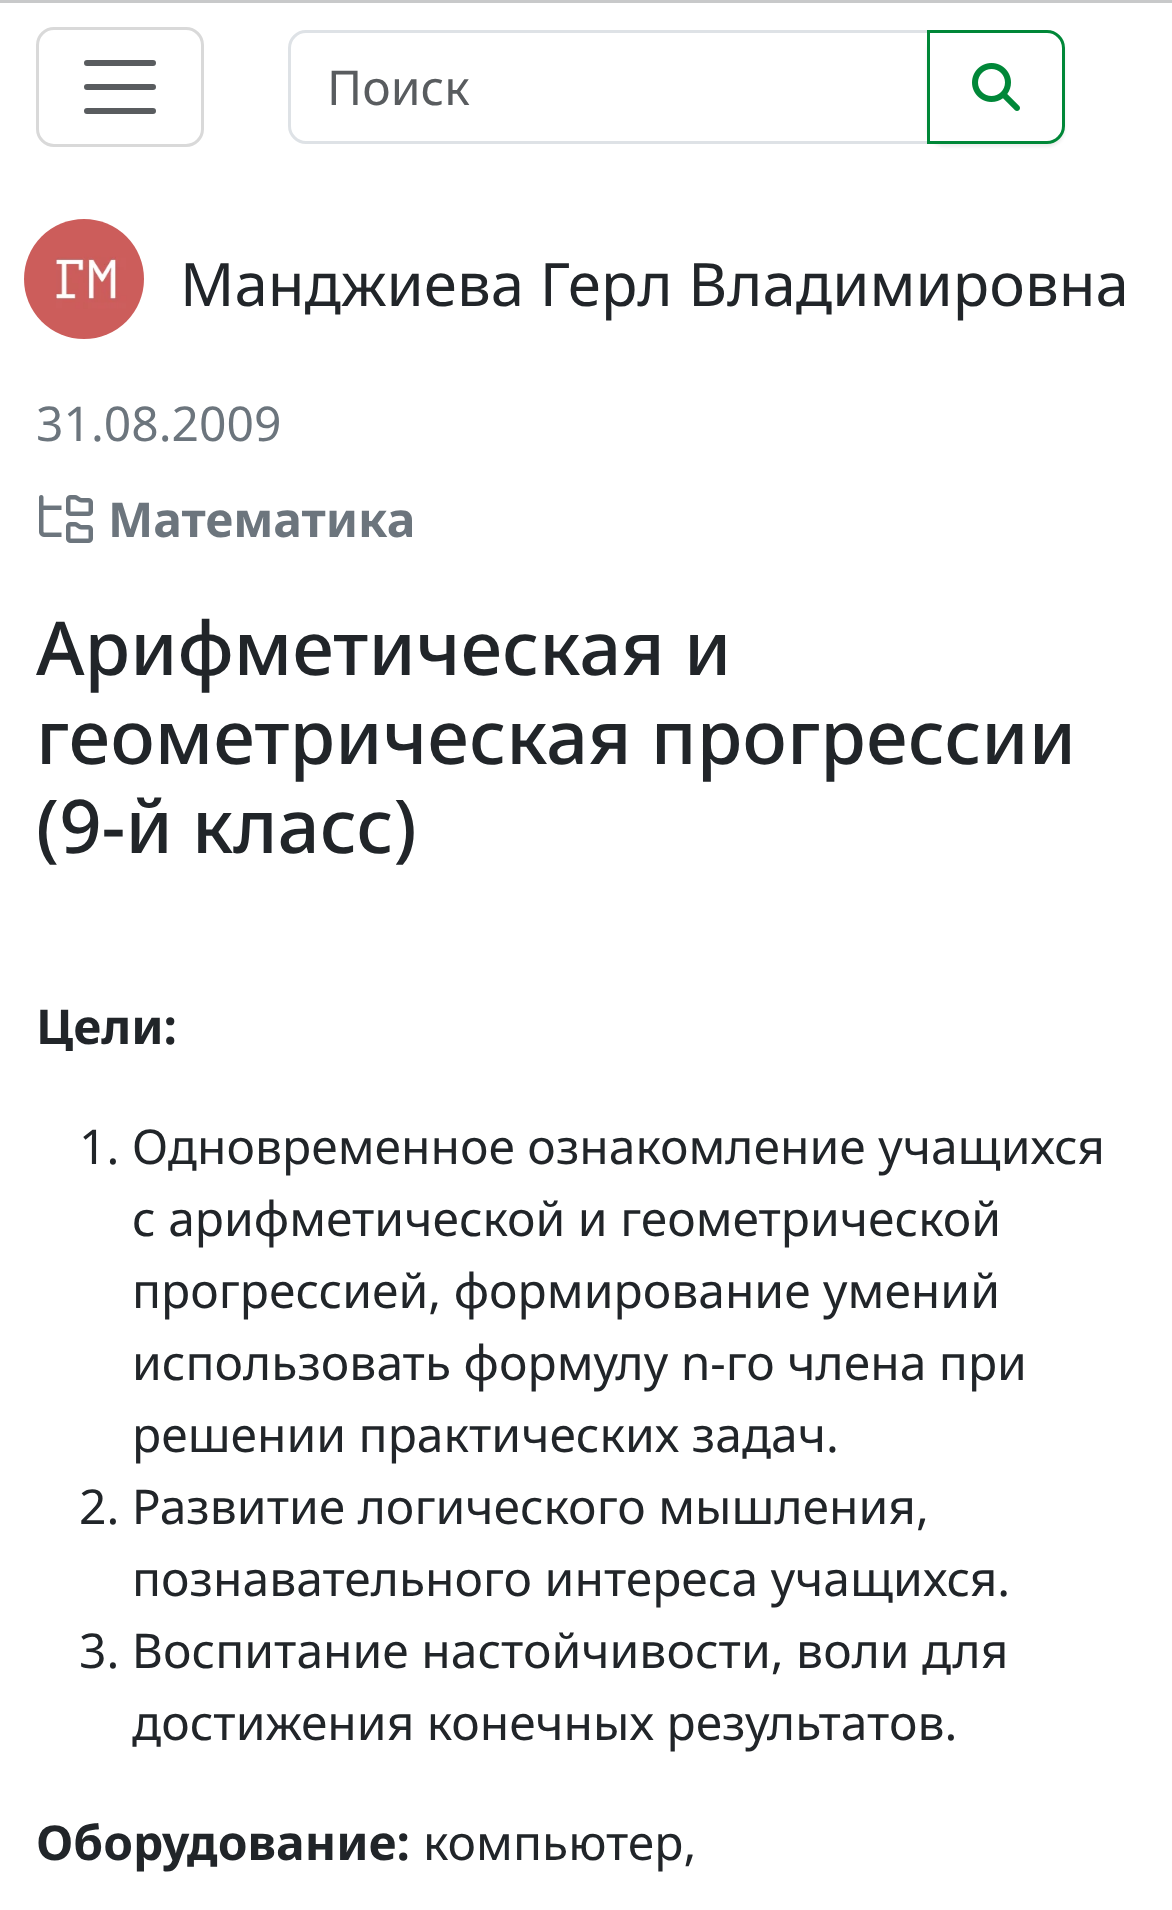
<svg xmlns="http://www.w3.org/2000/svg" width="1172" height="1910">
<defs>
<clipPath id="clip1"><path d="M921 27h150v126h-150zm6 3h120c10 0 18 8 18 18v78c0 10-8 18-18 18h-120z" clip-rule="evenodd"/></clipPath>
</defs>
<rect width="100%" height="100%" fill="#fff"/>
<rect width="1172" height="3" fill="#c8c9ca"/>
<rect x="37.5" y="28.5" width="165" height="117" rx="16.5" fill="none" stroke="#d9d9d9" stroke-width="3"/>
<path d="M87 63h66m-66 24h66m-66 24h66" fill="none" stroke="#595c5f" stroke-width="6" stroke-linecap="round"/>
<path d="M306 31.5h622.5v111h-622.5c-9 0-16.5-7.5-16.5-16.5v-78c0-9 7.5-16.5 16.5-16.5z" fill="none" stroke="#dee2e6" stroke-width="3"/>
<text x="327" y="105" style="font-family:Noto Sans;font-size:48px;fill:#595c5f">Поиск</text>
<g clip-path="url(#clip1)">
<rect x="927" y="33" width="138" height="114" rx="18" fill="#00000012" filter="blur(1.5px)"/>
</g>
<path d="M928.5 31.5h118.5c9 0 16.5 7.5 16.5 16.5v78c0 9-7.5 16.5-16.5 16.5h-118.5z" fill="none" stroke="#008738" stroke-width="3"/>
<image x="972" y="63" width="48" height="48" href="media/1.png"/>
<image x="24" y="219" width="120" height="120" href="media/2.png"/>
<text x="180" y="306" style="font-family:Noto Sans;font-size:60px;fill:#212529">Манджиева Герл Владимировна</text>
<text x="36" y="441" style="font-family:Noto Sans;font-size:48px;fill:#6c757d">31.08.2009</text>
<image x="39" y="495" width="54" height="48" href="media/3.png"/>
<text x="108" y="537" style="font-family:Noto Sans;font-size:48px;font-weight:bold;fill:#6c757d">Математика</text>
<text x="36" y="675" style="font-family:Noto Sans;font-size:74.2px;font-weight:500;fill:#212529">Арифметическая и</text>
<text x="36" y="764" style="font-family:Noto Sans;font-size:74.2px;font-weight:500;fill:#212529">геометрическая прогрессии</text>
<text x="36" y="853" style="font-family:Noto Sans;font-size:74.2px;font-weight:500;fill:#212529">(9-й класс)</text>
<text x="36" y="1044" style="font-family:Noto Sans;font-size:48px;font-weight:bold;fill:#212529">Цели:</text>
<text x="79" y="1164" style="font-family:Noto Sans;font-size:48px;fill:#212529">1. Одновременное ознакомление учащихся</text>
<text x="132" y="1236" style="font-family:Noto Sans;font-size:48px;fill:#212529">с арифметической и геометрической</text>
<text x="132" y="1308" style="font-family:Noto Sans;font-size:48px;fill:#212529">прогрессией, формирование умений</text>
<text x="132" y="1380" style="font-family:Noto Sans;font-size:48px;fill:#212529">использовать формулу n-го члена при</text>
<text x="132" y="1452" style="font-family:Noto Sans;font-size:48px;fill:#212529">решении практических задач.</text>
<text x="79" y="1524" style="font-family:Noto Sans;font-size:48px;fill:#212529">2. Развитие логического мышления,</text>
<text x="132" y="1596" style="font-family:Noto Sans;font-size:48px;fill:#212529">познавательного интереса учащихся.</text>
<text x="79" y="1668" style="font-family:Noto Sans;font-size:48px;fill:#212529">3. Воспитание настойчивости, воли для</text>
<text x="132" y="1740" style="font-family:Noto Sans;font-size:48px;fill:#212529">достижения конечных результатов.</text>
<text x="36" y="1860" style="font-family:Noto Sans;font-size:48px;font-weight:bold;fill:#212529">Оборудование:</text>
<text x="423" y="1860" style="font-family:Noto Sans;font-size:48px;fill:#212529">компьютер,</text>
</svg>
